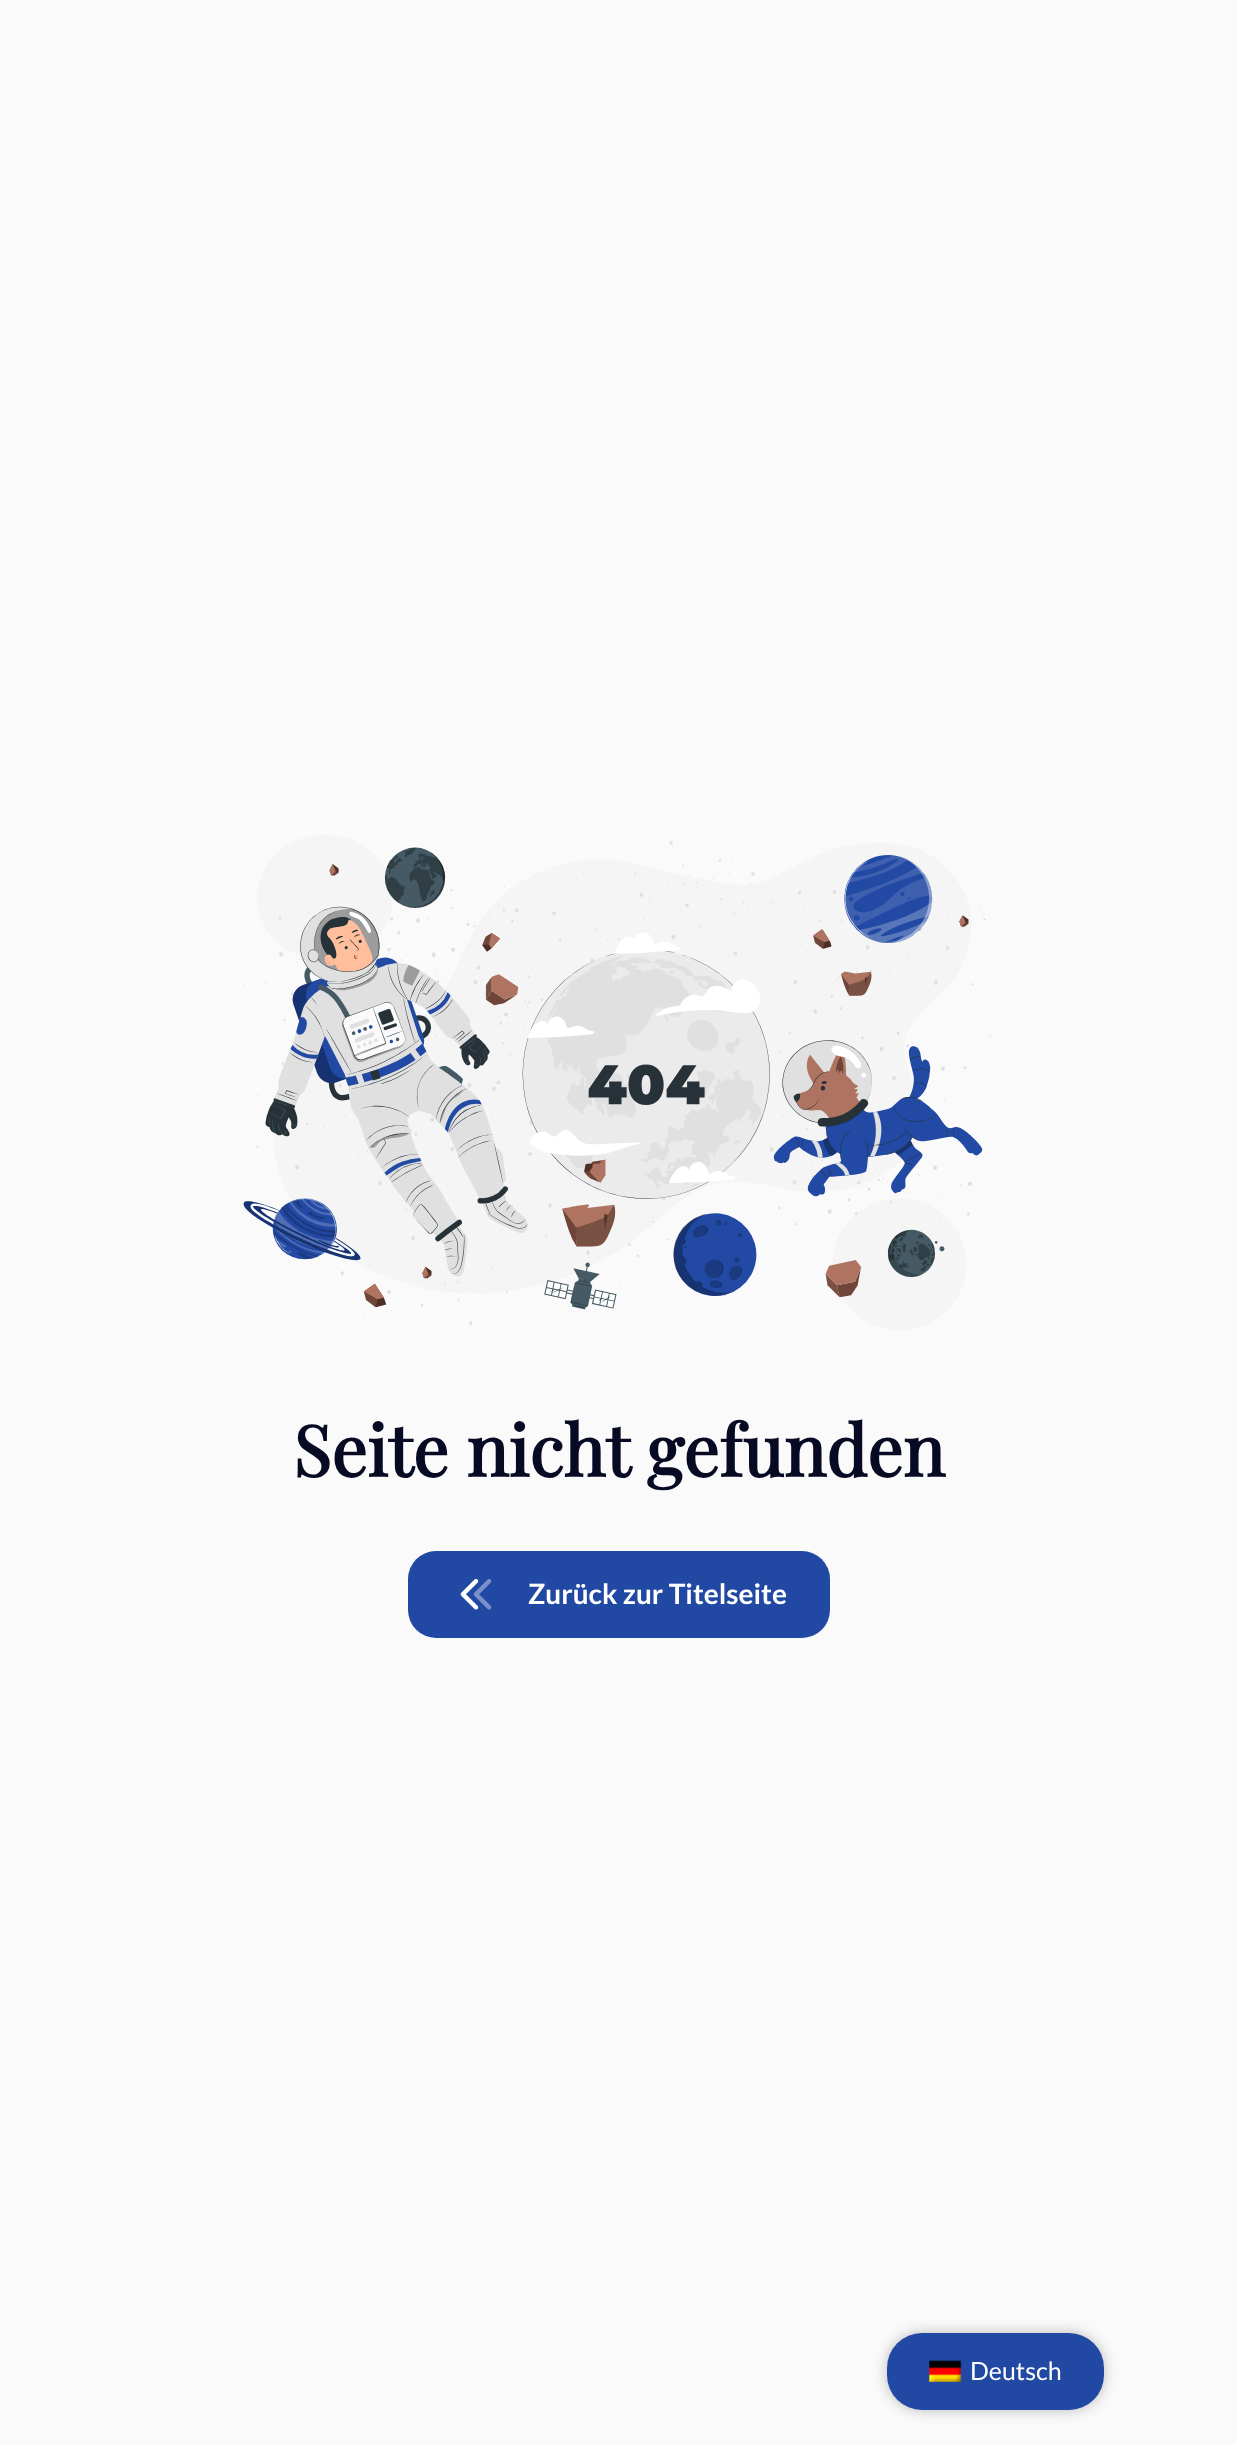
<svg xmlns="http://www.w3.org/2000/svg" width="1237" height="2445">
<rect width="100%" height="100%" fill="#fbfafa"/>
<image x="242" y="835" width="750" height="495" href="media/1.png"/>
<text x="293" y="1477" style="font-family:Playfair Display;font-size:70.75px;font-weight:bold;fill:#060b23">Seite nicht gefunden</text>
<rect x="408" y="1551" width="422" height="87" rx="28" fill="#2149a3"/>
<image x="460" y="1579" width="32" height="31" href="media/2.png"/>
<text x="528" y="1604" style="font-family:Lato;font-size:28px;font-weight:bold;fill:#fff">Zurück zur Titelseite</text>
<rect x="887" y="2333" width="217" height="77" rx="35" fill="#00000040" filter="blur(7px)"/>
<rect x="887" y="2333" width="217" height="77" rx="35" fill="#2149a3"/>
<image x="929" y="2360" width="33" height="22" href="media/3.png"/>
<text x="970" y="2380" style="font-family:Lato;font-size:25px;fill:#fff">Deutsch</text>
</svg>
